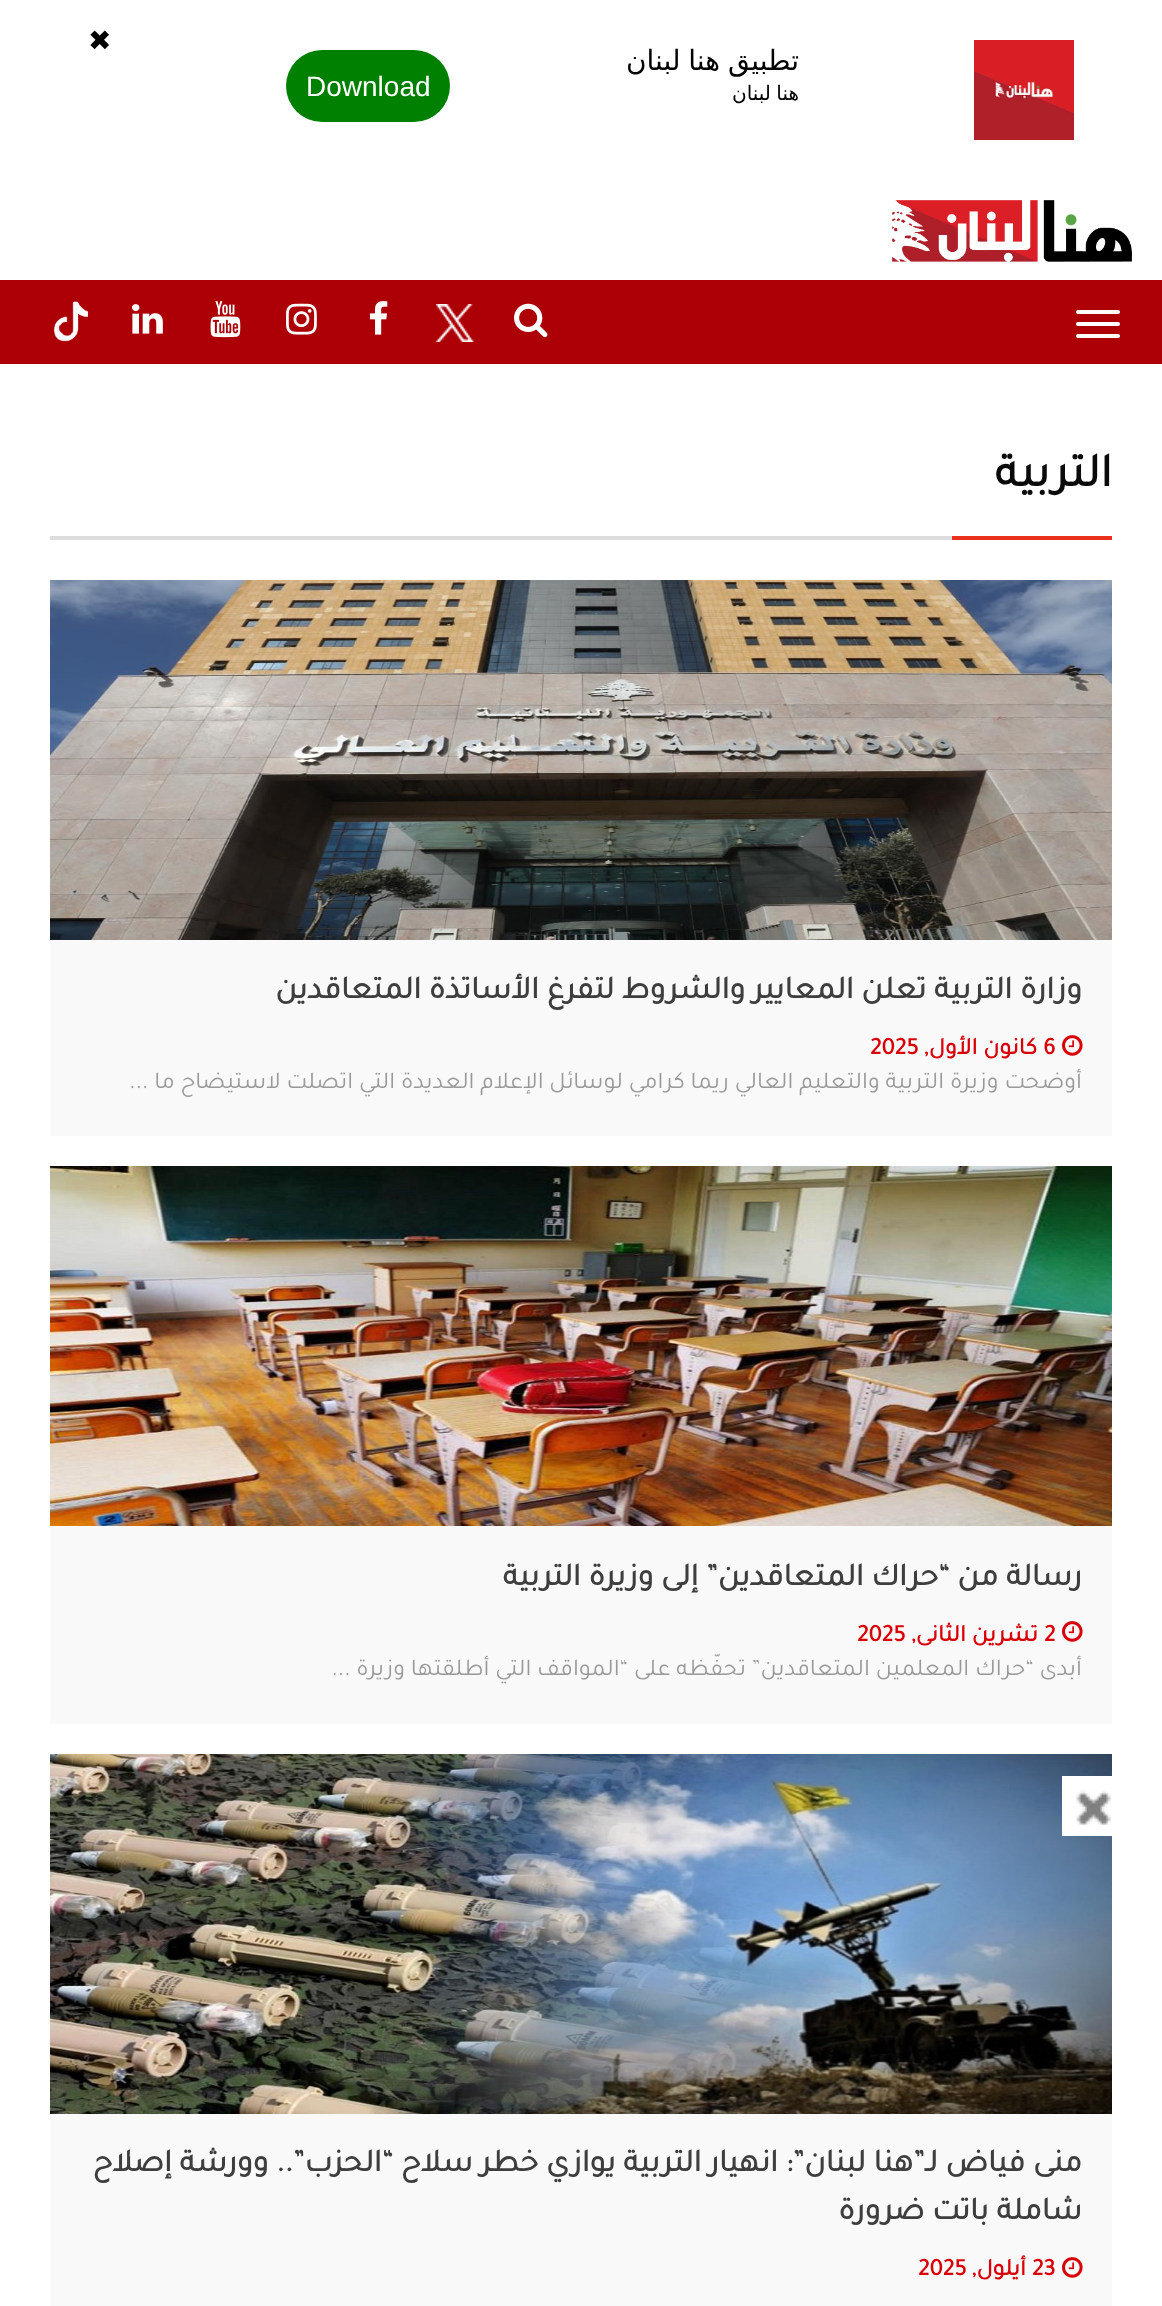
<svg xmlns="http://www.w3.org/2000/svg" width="1162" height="2306">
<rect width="100%" height="100%" fill="#fff"/>
<image x="974" y="40" width="100" height="100" href="media/1.png"/>
<text x="799" y="70" word-spacing="-1" style="font-family:DejaVu Sans;font-size:28px;direction:rtl;fill:#000">تطبيق هنا لبنان</text>
<text x="799" y="100" word-spacing="-1" style="font-family:DejaVu Sans;font-size:20px;direction:rtl;fill:#000">هنا لبنان</text>
<rect x="286" y="50" width="164" height="72" rx="36" fill="#008000"/>
<text x="306" y="96" style="font-family:Liberation Sans;font-size:28px;fill:#fff">Download</text>
<text x="88" y="50" style="font-family:DejaVu Sans;font-size:28px;fill:#000">✖</text>
<image x="892" y="200" width="240" height="62" href="media/2.png"/>
<rect y="280" width="1162" height="84" fill="#ac0006"/>
<image x="514" y="303" width="34" height="35" href="media/3.png"/>
<image x="436" y="304" width="38" height="38" href="media/4.png"/>
<image x="369" y="301" width="19" height="34" href="media/5.png"/>
<image x="286" y="303" width="31" height="32" href="media/6.png"/>
<image x="210" y="301" width="31" height="37" href="media/7.png"/>
<image x="132" y="304" width="31" height="30" href="media/8.png"/>
<image x="54" y="301" width="35" height="41" href="media/9.png"/>
<rect x="1076" y="310" width="44" height="4" rx="2" fill="#fff"/>
<rect x="1076" y="322" width="44" height="4" rx="2" fill="#fff"/>
<rect x="1076" y="334" width="44" height="4" rx="2" fill="#fff"/>
<rect x="50" y="536" width="902" height="4" fill="#ddd"/>
<text x="1112" y="486" style="font-family:Tajawal;font-size:48px;font-weight:bold;direction:rtl;fill:#0a0a0a">التربية</text>
<rect x="952" y="536" width="160" height="4" fill="#ea301b"/>
<rect x="50" y="940" width="1062" height="196" fill="#f9f9f9"/>
<image x="50" y="580" width="1062" height="360" href="media/10.png"/>
<text x="1082" y="998" style="font-family:Tajawal;font-size:32px;font-weight:bold;direction:rtl;fill:#3e3e3e">وزارة التربية تعلن المعايير والشروط لتفرغ الأساتذة المتعاقدين</text>
<image x="1062" y="1035" width="21" height="21" href="media/11.png"/>
<text x="1043" y="1054" style="font-family:Tajawal;font-size:24px;font-weight:bold;fill:#da0008">6</text>
<text x="1037" y="1054" style="font-family:Tajawal;font-size:24px;font-weight:bold;direction:rtl;fill:#da0008">كانون الأول,</text>
<text x="870" y="1054" style="font-family:Tajawal;font-size:24px;font-weight:bold;fill:#da0008">2025</text>
<text x="1082" y="1088" style="font-family:Tajawal;font-size:24px;direction:rtl;fill:#999">أوضحت وزيرة التربية والتعليم العالي ريما كرامي لوسائل الإعلام العديدة التي اتصلت لاستيضاح ما ...</text>
<rect x="50" y="1526" width="1062" height="198" fill="#f9f9f9"/>
<image x="50" y="1166" width="1062" height="360" href="media/12.png"/>
<text x="1082" y="1585" style="font-family:Tajawal;font-size:32px;font-weight:bold;direction:rtl;fill:#3e3e3e">رسالة من “حراك المتعاقدين” إلى وزيرة التربية</text>
<image x="1062" y="1621" width="21" height="21" href="media/11.png"/>
<text x="1044" y="1641" style="font-family:Tajawal;font-size:24px;font-weight:bold;fill:#da0008">2</text>
<text x="1038" y="1641" style="font-family:Tajawal;font-size:24px;font-weight:bold;direction:rtl;fill:#da0008">تشرين الثانى,</text>
<text x="857" y="1641" style="font-family:Tajawal;font-size:24px;font-weight:bold;fill:#da0008">2025</text>
<text x="1082" y="1675" style="font-family:Tajawal;font-size:24px;direction:rtl;fill:#999">أبدى “حراك المعلمين المتعاقدين” تحفّظه على “المواقف التي أطلقتها وزيرة ...</text>
<rect x="50" y="2114" width="1062" height="192" fill="#f9f9f9"/>
<image x="50" y="1754" width="1062" height="360" href="media/13.png"/>
<text x="1082" y="2171" style="font-family:Tajawal;font-size:32px;font-weight:bold;direction:rtl;fill:#3e3e3e">منى فياض لـ”هنا لبنان”: انهيار التربية يوازي خطر سلاح “الحزب”.. وورشة إصلاح</text>
<text x="1082" y="2219" style="font-family:Tajawal;font-size:32px;font-weight:bold;direction:rtl;fill:#3e3e3e">شاملة باتت ضرورة</text>
<image x="1062" y="2257" width="21" height="21" href="media/11.png"/>
<text x="1032" y="2275" style="font-family:Tajawal;font-size:24px;font-weight:bold;fill:#da0008">23</text>
<text x="1026" y="2275" style="font-family:Tajawal;font-size:24px;font-weight:bold;direction:rtl;fill:#da0008">أيلول,</text>
<text x="918" y="2275" style="font-family:Tajawal;font-size:24px;font-weight:bold;fill:#da0008">2025</text>
<image x="1062" y="1776" width="50" height="60" href="media/14.png"/>
</svg>
